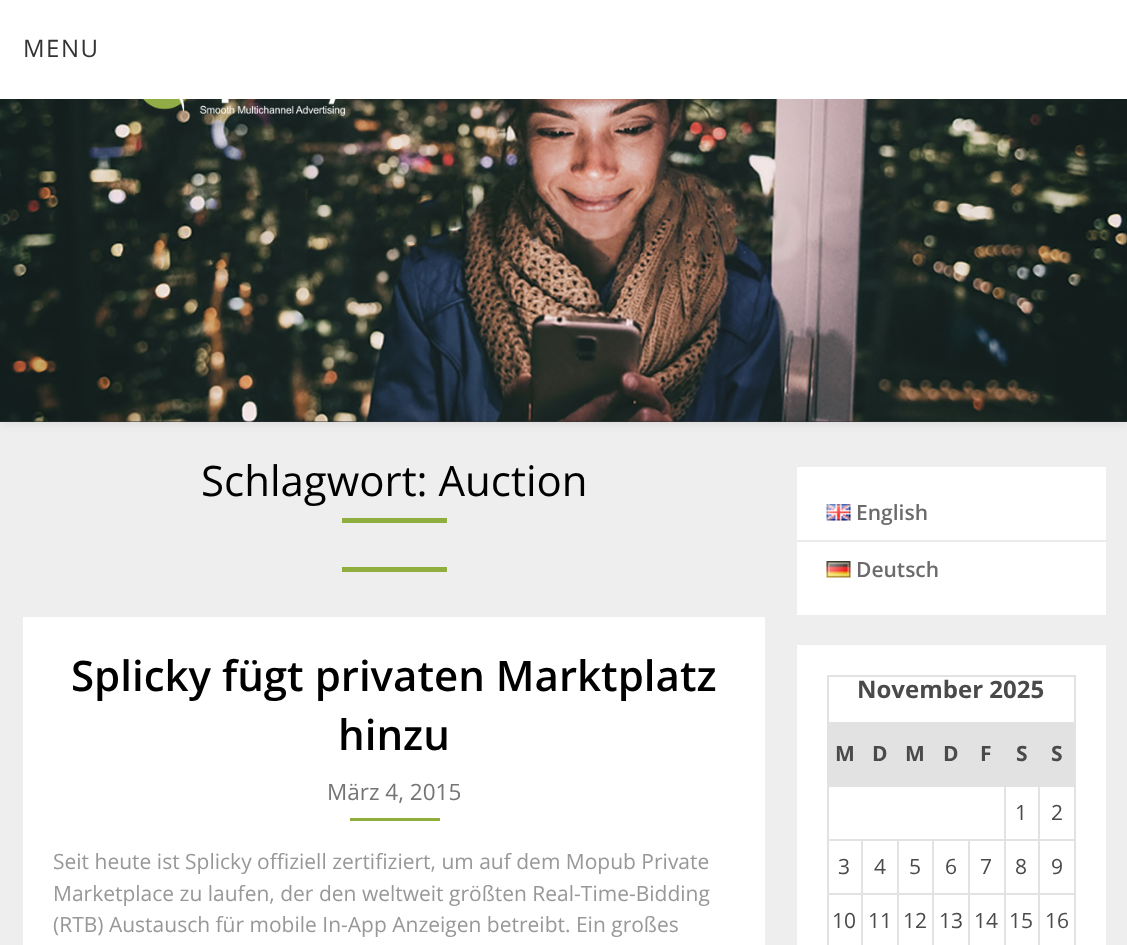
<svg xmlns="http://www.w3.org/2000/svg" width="1127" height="945">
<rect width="100%" height="100%" fill="#eee"/>
<rect width="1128" height="422" fill="#0000001a" filter="blur(6px)"/>
<rect y="421" width="1127" height="1" fill="#333"/>
<image x="0" y="99" width="1127" height="323" href="media/1.png"/>
<rect width="1127" height="99" fill="#fff"/>
<text x="23" y="57" style="font-family:Open Sans;font-size:24px;letter-spacing:1.5px;fill:#333">MENU</text>
<text x="201" y="496" style="font-family:Open Sans;font-size:42px;fill:#000">Schlagwort: Auction</text>
<rect x="342" y="518" width="105" height="5" fill="#8fae3e"/>
<rect x="342" y="567" width="105" height="5" fill="#8fae3e"/>
<rect x="23" y="617" width="742" height="328" fill="#fff"/>
<text x="71" y="691" style="font-family:Open Sans;font-size:42px;font-weight:600;fill:#000">Splicky fügt privaten Marktplatz</text>
<text x="338" y="750" style="font-family:Open Sans;font-size:42px;font-weight:600;fill:#000">hinzu</text>
<text x="327" y="800" style="font-family:Open Sans;font-size:22.5px;fill:#757575">März 4, 2015</text>
<rect x="350" y="818" width="90" height="3" fill="#8fae3e"/>
<text x="53" y="869" style="font-family:Open Sans;font-size:21px;fill:#989898">Seit heute ist Splicky offiziell zertifiziert, um auf dem Mopub Private</text>
<text x="53" y="901" style="font-family:Open Sans;font-size:21px;fill:#989898">Marketplace zu laufen, der den weltweit größten Real-Time-Bidding</text>
<text x="53" y="932" style="font-family:Open Sans;font-size:21px;fill:#989898">(RTB) Austausch für mobile In-App Anzeigen betreibt. Ein großes</text>
<rect x="797" y="467" width="309" height="148" fill="#fff"/>
<rect x="797" y="540" width="309" height="2" fill="#ebebeb"/>
<image x="826" y="504" width="25" height="17" href="media/2.png"/>
<text x="856" y="520" style="font-family:Open Sans;font-size:21px;font-weight:600;fill:#6b6b6b">English</text>
<image x="826" y="561" width="25" height="17" href="media/3.png"/>
<text x="856" y="577" style="font-family:Open Sans;font-size:21px;font-weight:600;fill:#6b6b6b">Deutsch</text>
<rect x="797" y="645" width="309" height="300" fill="#fff"/>
<rect x="827" y="675" width="249" height="2" fill="#e2e2e2"/>
<rect x="1074" y="675" width="2" height="270" fill="#e2e2e2"/>
<rect x="827" y="675" width="2" height="270" fill="#e2e2e2"/>
<text x="857" y="698" style="font-family:Open Sans;font-size:24px;font-weight:bold;fill:#4a4a4a">November 2025</text>
<rect x="829" y="722" width="245" height="63" fill="#e2e2e2"/>
<text x="835" y="761" style="font-family:Open Sans;font-size:21px;font-weight:bold;fill:#4a4a4a">M</text>
<text x="872" y="761" style="font-family:Open Sans;font-size:21px;font-weight:bold;fill:#4a4a4a">D</text>
<text x="905" y="761" style="font-family:Open Sans;font-size:21px;font-weight:bold;fill:#4a4a4a">M</text>
<text x="943" y="761" style="font-family:Open Sans;font-size:21px;font-weight:bold;fill:#4a4a4a">D</text>
<text x="980" y="761" style="font-family:Open Sans;font-size:21px;font-weight:bold;fill:#4a4a4a">F</text>
<text x="1016" y="761" style="font-family:Open Sans;font-size:21px;font-weight:bold;fill:#4a4a4a">S</text>
<text x="1051" y="761" style="font-family:Open Sans;font-size:21px;font-weight:bold;fill:#4a4a4a">S</text>
<rect x="1038" y="785" width="38" height="2" fill="#e2e2e2"/>
<rect x="1038" y="839" width="38" height="2" fill="#e2e2e2"/>
<rect x="1038" y="893" width="38" height="2" fill="#e2e2e2"/>
<rect x="1038" y="893" width="2" height="52" fill="#e2e2e2"/>
<rect x="1004" y="893" width="36" height="2" fill="#e2e2e2"/>
<rect x="1038" y="839" width="2" height="55" fill="#e2e2e2"/>
<rect x="1004" y="839" width="36" height="2" fill="#e2e2e2"/>
<rect x="1038" y="785" width="2" height="55" fill="#e2e2e2"/>
<rect x="1004" y="785" width="36" height="2" fill="#e2e2e2"/>
<rect x="1004" y="893" width="2" height="52" fill="#e2e2e2"/>
<rect x="968" y="893" width="37" height="2" fill="#e2e2e2"/>
<rect x="1004" y="839" width="2" height="55" fill="#e2e2e2"/>
<rect x="968" y="839" width="37" height="2" fill="#e2e2e2"/>
<rect x="1004" y="785" width="2" height="55" fill="#e2e2e2"/>
<rect x="827" y="785" width="178" height="2" fill="#e2e2e2"/>
<text x="1015" y="820" style="font-family:Open Sans;font-size:21px;fill:#4a4a4a">1</text>
<text x="1051" y="820" style="font-family:Open Sans;font-size:21px;fill:#4a4a4a">2</text>
<rect x="968" y="893" width="2" height="52" fill="#e2e2e2"/>
<rect x="932" y="893" width="37" height="2" fill="#e2e2e2"/>
<rect x="968" y="839" width="2" height="55" fill="#e2e2e2"/>
<rect x="932" y="839" width="37" height="2" fill="#e2e2e2"/>
<rect x="932" y="893" width="2" height="52" fill="#e2e2e2"/>
<rect x="897" y="893" width="36" height="2" fill="#e2e2e2"/>
<rect x="932" y="839" width="2" height="55" fill="#e2e2e2"/>
<rect x="897" y="839" width="36" height="2" fill="#e2e2e2"/>
<rect x="897" y="893" width="2" height="52" fill="#e2e2e2"/>
<rect x="861" y="893" width="38" height="2" fill="#e2e2e2"/>
<rect x="897" y="839" width="2" height="55" fill="#e2e2e2"/>
<rect x="861" y="839" width="38" height="2" fill="#e2e2e2"/>
<rect x="861" y="893" width="2" height="52" fill="#e2e2e2"/>
<rect x="827" y="893" width="36" height="2" fill="#e2e2e2"/>
<rect x="861" y="839" width="2" height="55" fill="#e2e2e2"/>
<rect x="827" y="839" width="36" height="2" fill="#e2e2e2"/>
<text x="838" y="874" style="font-family:Open Sans;font-size:21px;fill:#4a4a4a">3</text>
<text x="874" y="874" style="font-family:Open Sans;font-size:21px;fill:#4a4a4a">4</text>
<text x="909" y="874" style="font-family:Open Sans;font-size:21px;fill:#4a4a4a">5</text>
<text x="945" y="874" style="font-family:Open Sans;font-size:21px;fill:#4a4a4a">6</text>
<text x="980" y="874" style="font-family:Open Sans;font-size:21px;fill:#4a4a4a">7</text>
<text x="1015" y="874" style="font-family:Open Sans;font-size:21px;fill:#4a4a4a">8</text>
<text x="1051" y="874" style="font-family:Open Sans;font-size:21px;fill:#4a4a4a">9</text>
<text x="832" y="928" style="font-family:Open Sans;font-size:21px;fill:#4a4a4a">10</text>
<text x="868" y="928" style="font-family:Open Sans;font-size:21px;fill:#4a4a4a">11</text>
<text x="903" y="928" style="font-family:Open Sans;font-size:21px;fill:#4a4a4a">12</text>
<text x="939" y="928" style="font-family:Open Sans;font-size:21px;fill:#4a4a4a">13</text>
<text x="974" y="928" style="font-family:Open Sans;font-size:21px;fill:#4a4a4a">14</text>
<text x="1009" y="928" style="font-family:Open Sans;font-size:21px;fill:#4a4a4a">15</text>
<text x="1045" y="928" style="font-family:Open Sans;font-size:21px;fill:#4a4a4a">16</text>
</svg>
